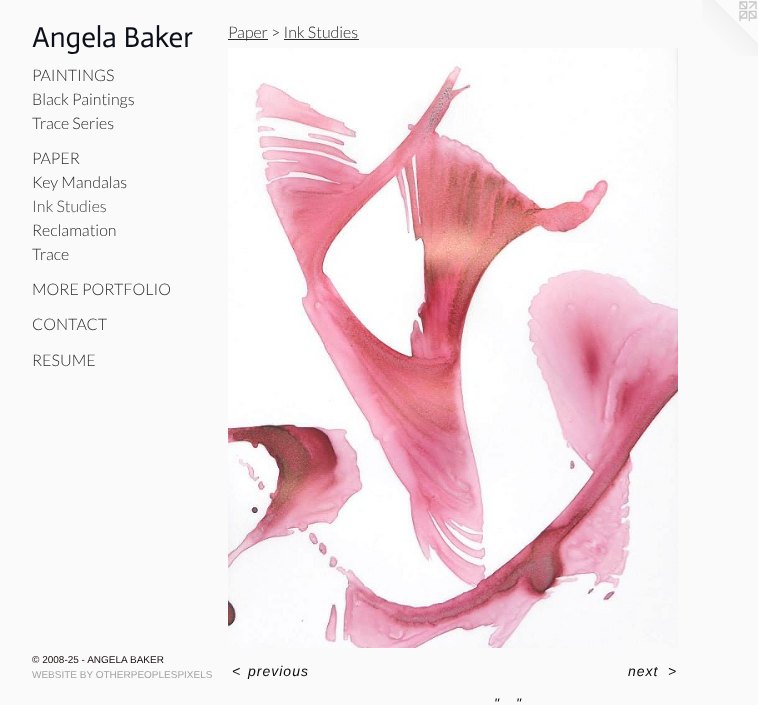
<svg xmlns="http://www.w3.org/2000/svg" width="758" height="705">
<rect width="100%" height="100%" fill="#fafafa"/>
<text x="32" y="47" style="font-family:Actor;font-size:29px;fill:#0b0f19">Angela Baker</text>
<text x="32" y="81" style="font-family:Lato;font-size:16px;font-weight:300;fill:#2b2b2b">PAINTINGS</text>
<text x="32" y="105" style="font-family:Lato;font-size:16px;font-weight:300;fill:#2b2b2b">Black Paintings</text>
<text x="32" y="129" style="font-family:Lato;font-size:16px;font-weight:300;fill:#2b2b2b">Trace Series</text>
<text x="32" y="164" style="font-family:Lato;font-size:16px;font-weight:300;fill:#2b2b2b">PAPER</text>
<text x="32" y="188" style="font-family:Lato;font-size:16px;font-weight:300;fill:#2b2b2b">Key Mandalas</text>
<text x="32" y="212" style="font-family:Lato;font-size:16px;font-weight:300;fill:#454545">Ink Studies</text>
<text x="32" y="236" style="font-family:Lato;font-size:16px;font-weight:300;fill:#2b2b2b">Reclamation</text>
<text x="32" y="260" style="font-family:Lato;font-size:16px;font-weight:300;fill:#2b2b2b">Trace</text>
<text x="32" y="295" style="font-family:Lato;font-size:16px;font-weight:300;fill:#2b2b2b">MORE PORTFOLIO</text>
<text x="32" y="330" style="font-family:Lato;font-size:16px;font-weight:300;fill:#2b2b2b">CONTACT</text>
<text x="32" y="366" style="font-family:Lato;font-size:16px;font-weight:300;fill:#2b2b2b">RESUME</text>
<text x="32" y="663" style="font-family:Liberation Sans;font-size:10px;fill:#1a0f0f">© 2008-25 - ANGELA BAKER</text>
<text x="32" y="678" style="font-family:Liberation Sans;font-size:10px;fill:#a2a4a4">WEBSITE BY OTHERPEOPLESPIXELS</text>
<rect x="228" y="39" width="40" height="1" fill="#2b2b2b"/>
<text x="228" y="38" style="font-family:Lato;font-size:16px;font-weight:300;fill:#2b2b2b">Paper &gt; Ink Studies</text>
<rect x="284" y="39" width="75" height="1" fill="#2b2b2b"/>
<image x="228" y="48" width="450" height="600" href="media/1.png"/>
<text x="232" y="676" style="font-family:Liberation Sans;font-size:14px;font-style:italic;letter-spacing:1px;fill:#0f0a0a">&lt;</text>
<text x="248" y="676" style="font-family:Liberation Sans;font-size:14px;font-style:italic;letter-spacing:1px;fill:#0f0a0a">previous</text>
<text x="628" y="676" style="font-family:Liberation Sans;font-size:14px;font-style:italic;letter-spacing:1px;fill:#0f0a0a">next</text>
<text x="668" y="676" style="font-family:Liberation Sans;font-size:14px;font-style:italic;letter-spacing:1px;fill:#0f0a0a">&gt;</text>
<text x="494" y="708" style="font-family:Liberation Sans;font-size:14px;font-style:italic;fill:#0f0a0a">"</text>
<text x="516" y="708" style="font-family:Liberation Sans;font-size:14px;font-style:italic;fill:#0f0a0a">"</text>
<image x="702" y="0" width="56" height="56" href="media/2.png"/>
</svg>
